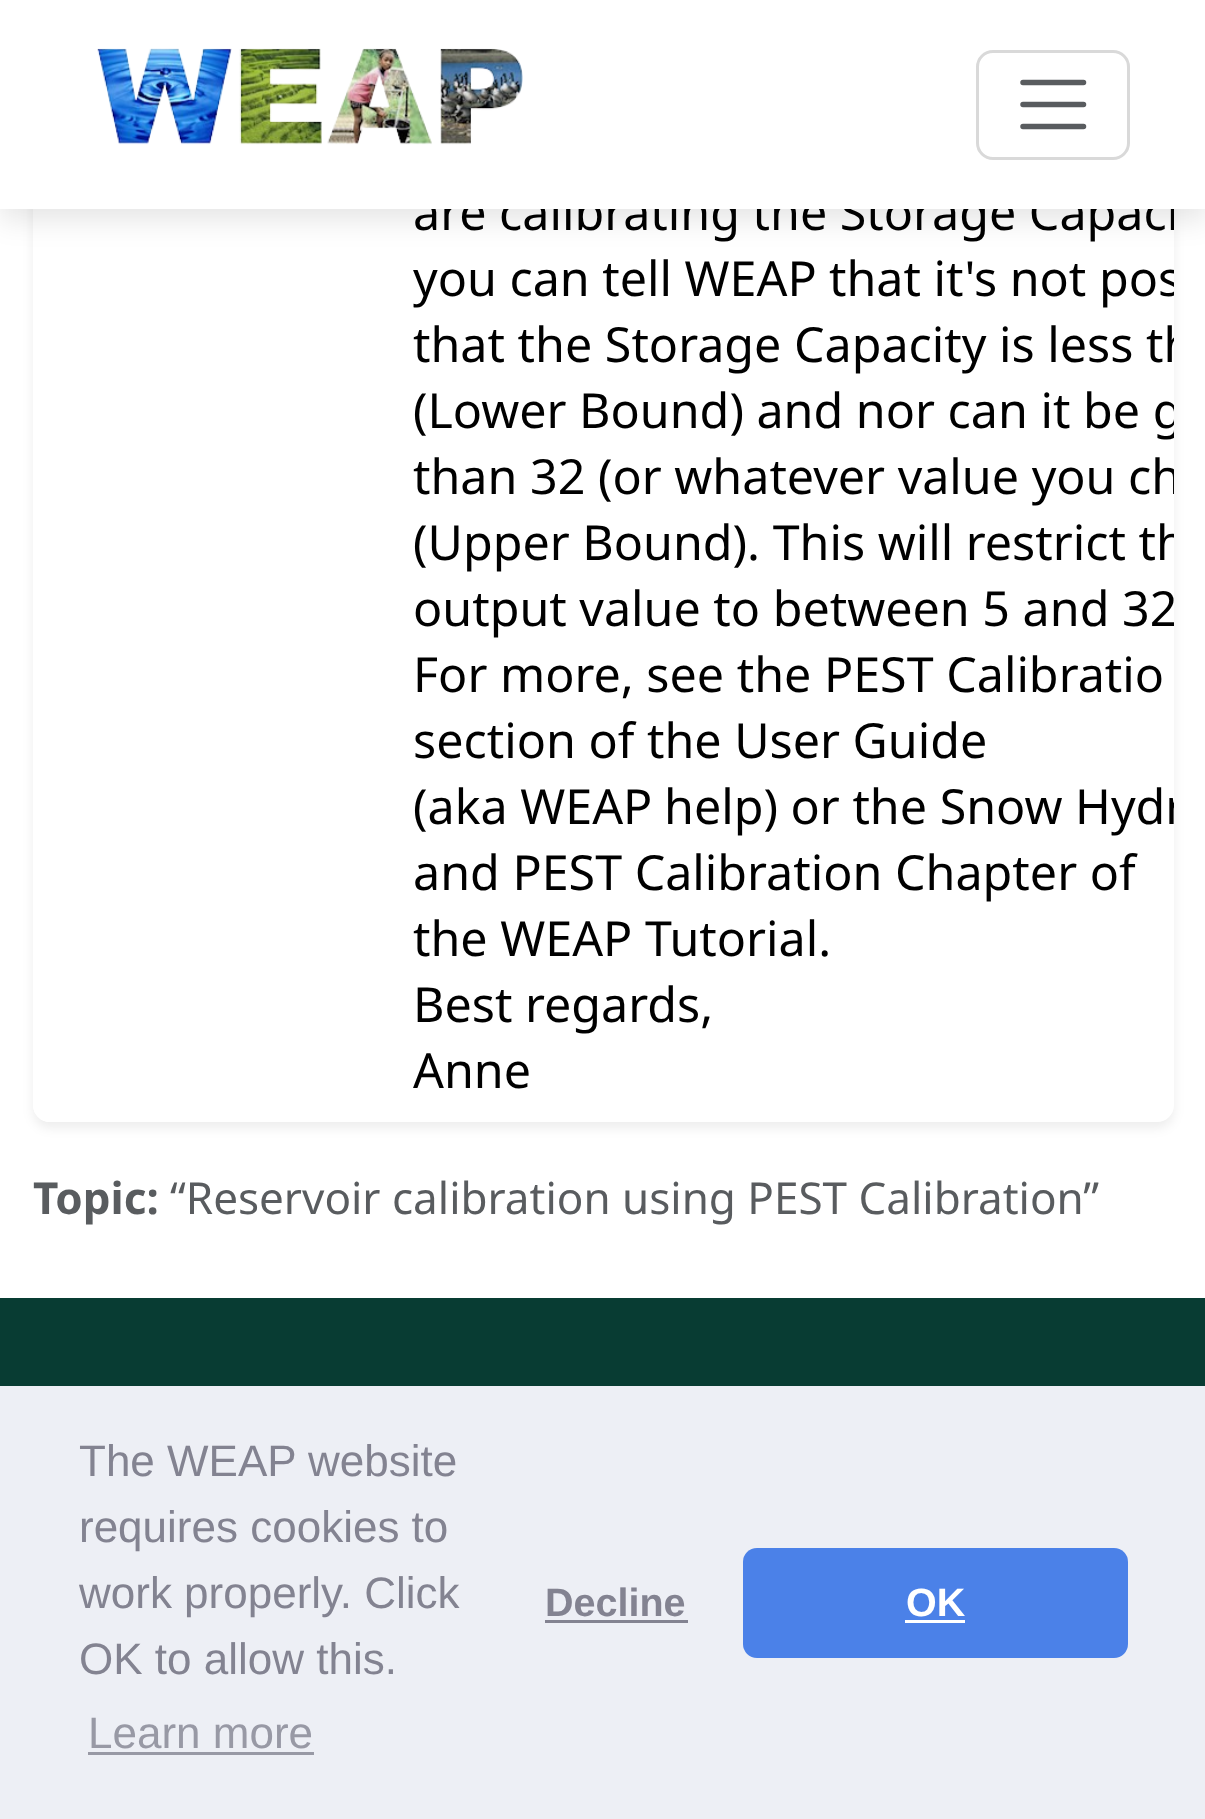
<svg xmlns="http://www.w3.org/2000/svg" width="1205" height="1819">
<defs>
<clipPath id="clip1"><rect x="33" y="-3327" width="1141" height="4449" rx="17"/></clipPath>
</defs>
<rect width="100%" height="100%" fill="#fff"/>
<rect x="33" y="-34" width="1141" height="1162" rx="17" fill="#00000012" filter="blur(5.5px)"/>
<path d="M33-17h1141v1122c0 9.5-7.5 17-17 17h-1107c-9.5 0-17-7.5-17-17z" fill="#fff"/>
<path d="M33-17h360v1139h-343c-9.5 0-17-7.5-17-17z" fill="#fff"/>
<rect y="11" width="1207" height="209" fill="#0000001a" filter="blur(14px)"/>
<g clip-path="url(#clip1)">
<text x="413" y="230" style="font-family:Noto Sans;font-size:48.4px;fill:#000">are calibrating the Storage Capaci</text>
</g>
<rect width="1205" height="209" fill="#fff"/>
<image x="97" y="48" width="426" height="97" href="media/1.png"/>
<rect x="977.5" y="51.5" width="151" height="107" rx="15.5" fill="none" stroke="#d9d9d9" stroke-width="3"/>
<path d="M1023 82.5h60.5m-60.5 22h60.5m-60.5 22h60.5" fill="none" stroke="#595c5f" stroke-width="5.5" stroke-linecap="round"/>
<text x="413" y="296" style="font-family:Noto Sans;font-size:48.4px;fill:#000">you can tell WEAP</text>
<g clip-path="url(#clip1)">
<text x="829" y="296" style="font-family:Noto Sans;font-size:48.4px;fill:#000">that it's not pos</text>
<text x="413" y="362" style="font-family:Noto Sans;font-size:48.4px;fill:#000">that the Storage Capacity is less th</text>
<text x="413" y="428" style="font-family:Noto Sans;font-size:48.4px;fill:#000">(Lower Bound) and nor can it be g</text>
<text x="413" y="494" style="font-family:Noto Sans;font-size:48.4px;fill:#000">than 32 (or whatever value you ch</text>
<text x="413" y="560" style="font-family:Noto Sans;font-size:48.4px;fill:#000">(Upper Bound). This will restrict th</text>
<text x="413" y="626" style="font-family:Noto Sans;font-size:48.4px;fill:#000">output value to between 5 and 32</text>
</g>
<text x="413" y="692" style="font-family:Noto Sans;font-size:48.4px;fill:#000">For more, see the PEST Calibratio</text>
<text x="413" y="758" style="font-family:Noto Sans;font-size:48.4px;fill:#000">section of the User Guide</text>
<text x="413" y="824" style="font-family:Noto Sans;font-size:48.4px;fill:#000">(aka WEAP</text>
<g clip-path="url(#clip1)">
<text x="664" y="824" style="font-family:Noto Sans;font-size:48.4px;fill:#000">help) or the Snow Hydr</text>
</g>
<text x="413" y="890" style="font-family:Noto Sans;font-size:48.4px;fill:#000">and PEST Calibration Chapter of</text>
<text x="413" y="956" style="font-family:Noto Sans;font-size:48.4px;fill:#000">the WEAP Tutorial.</text>
<text x="413" y="1022" style="font-family:Noto Sans;font-size:48.4px;fill:#000">Best regards,</text>
<text x="413" y="1088" style="font-family:Noto Sans;font-size:48.4px;fill:#000">Anne</text>
<text x="33" y="1214" style="font-family:Noto Sans;font-size:44px;font-weight:bold;fill:#595c5f">Topic:</text>
<text x="170" y="1214" style="font-family:Noto Sans;font-size:44px;fill:#595c5f">“Reservoir calibration using PEST Calibration”</text>
<rect y="1298" width="1205" height="88" fill="#083c33"/>
<rect y="1386" width="1205" height="433" fill="#edeff5"/>
<text x="79" y="1476" style="font-family:Liberation Sans;font-size:44px;fill:#838391">The WEAP website</text>
<text x="79" y="1542" style="font-family:Liberation Sans;font-size:44px;fill:#838391">requires cookies to</text>
<text x="79" y="1608" style="font-family:Liberation Sans;font-size:44px;fill:#838391">work properly. Click</text>
<text x="79" y="1674" style="font-family:Liberation Sans;font-size:44px;fill:#838391">OK to allow this.</text>
<text x="88" y="1748" style="font-family:Liberation Sans;font-size:44px;fill:#9899a5">Learn more</text>
<rect x="88" y="1752" width="226" height="3" fill="#9899a5"/>
<text x="545" y="1616" style="font-family:Liberation Sans;font-size:39.5px;font-weight:bold;fill:#838391">Decline</text>
<rect x="545" y="1620" width="143" height="3" fill="#838391"/>
<rect x="743" y="1548" width="385" height="110" rx="14" fill="#4b81e8"/>
<text x="906" y="1616" style="font-family:Liberation Sans;font-size:39.5px;font-weight:bold;fill:#fff">OK</text>
<rect x="905" y="1620" width="60" height="3" fill="#fff"/>
</svg>
